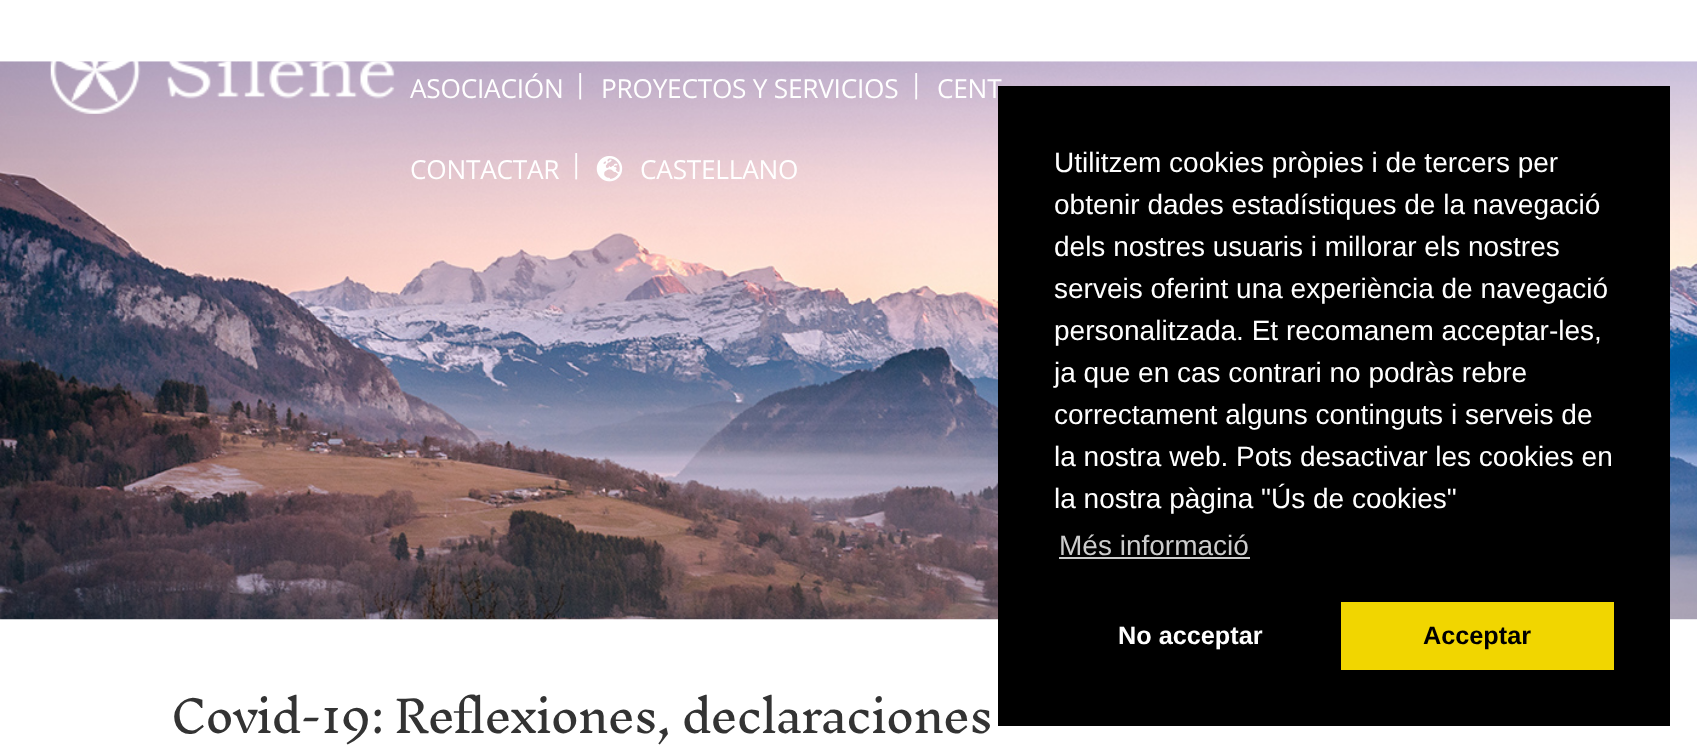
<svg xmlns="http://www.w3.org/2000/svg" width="1697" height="753">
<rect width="100%" height="100%" fill="#fff"/>
<image x="0" y="61" width="1697" height="559" href="media/3.png"/>
<image x="50" y="61" width="345" height="53" href="media/1.png"/>
<text x="410" y="98" style="font-family:Open Sans;font-size:26.25px;letter-spacing:-0.25px;fill:#fff">ASOCIACIÓN</text>
<text x="573" y="93" style="font-family:Open Sans;font-size:26.25px;fill:#fff">|</text>
<text x="601" y="98" style="font-family:Open Sans;font-size:26.25px;letter-spacing:-0.25px;fill:#fff">PROYECTOS Y SERVICIOS</text>
<text x="909" y="93" style="font-family:Open Sans;font-size:26.25px;fill:#fff">|</text>
<text x="937" y="98" style="font-family:Open Sans;font-size:26.25px;letter-spacing:-0.25px;fill:#fff">CENT</text>
<text x="410" y="179" style="font-family:Open Sans;font-size:26.25px;letter-spacing:-0.25px;fill:#fff">CONTACTAR</text>
<text x="569" y="173" style="font-family:Open Sans;font-size:26.25px;fill:#fff">|</text>
<image x="596" y="156" width="27" height="26" href="media/2.png"/>
<text x="640" y="179" style="font-family:Open Sans;font-size:26.25px;letter-spacing:-0.25px;fill:#fff">CASTELLANO</text>
<text x="171" y="733" style="font-family:Inknut Antiqua;font-size:43.75px;font-weight:300;letter-spacing:-1.75px;fill:#333">Covid-19: Reflexiones, declaraciones</text>
<rect x="998" y="86" width="672" height="640" fill="#000"/>
<text x="1054" y="172" style="font-family:Liberation Sans;font-size:28px;fill:#fff">Utilitzem cookies pròpies i de tercers per</text>
<text x="1054" y="214" style="font-family:Liberation Sans;font-size:28px;fill:#fff">obtenir dades estadístiques de la navegació</text>
<text x="1054" y="256" style="font-family:Liberation Sans;font-size:28px;fill:#fff">dels nostres usuaris i millorar els nostres</text>
<text x="1054" y="298" style="font-family:Liberation Sans;font-size:28px;fill:#fff">serveis oferint una experiència de navegació</text>
<text x="1054" y="340" style="font-family:Liberation Sans;font-size:28px;fill:#fff">personalitzada. Et recomanem acceptar-les,</text>
<text x="1054" y="382" style="font-family:Liberation Sans;font-size:28px;fill:#fff">ja que en cas contrari no podràs rebre</text>
<text x="1054" y="424" style="font-family:Liberation Sans;font-size:28px;fill:#fff">correctament alguns continguts i serveis de</text>
<text x="1054" y="466" style="font-family:Liberation Sans;font-size:28px;fill:#fff">la nostra web. Pots desactivar les cookies en</text>
<text x="1054" y="508" style="font-family:Liberation Sans;font-size:28px;fill:#fff">la nostra pàgina "Ús de cookies"</text>
<text x="1059" y="555" style="font-family:Liberation Sans;font-size:28px;fill:#ccc">Més informació</text>
<rect x="1059" y="557" width="191" height="2" fill="#ccc"/>
<text x="1118" y="644" style="font-family:Liberation Sans;font-size:25.25px;font-weight:bold;fill:#fff">No acceptar</text>
<rect x="1341" y="602" width="273" height="68" fill="#f1d600"/>
<text x="1423" y="644" style="font-family:Liberation Sans;font-size:25.25px;font-weight:bold;fill:#000">Acceptar</text>
</svg>
